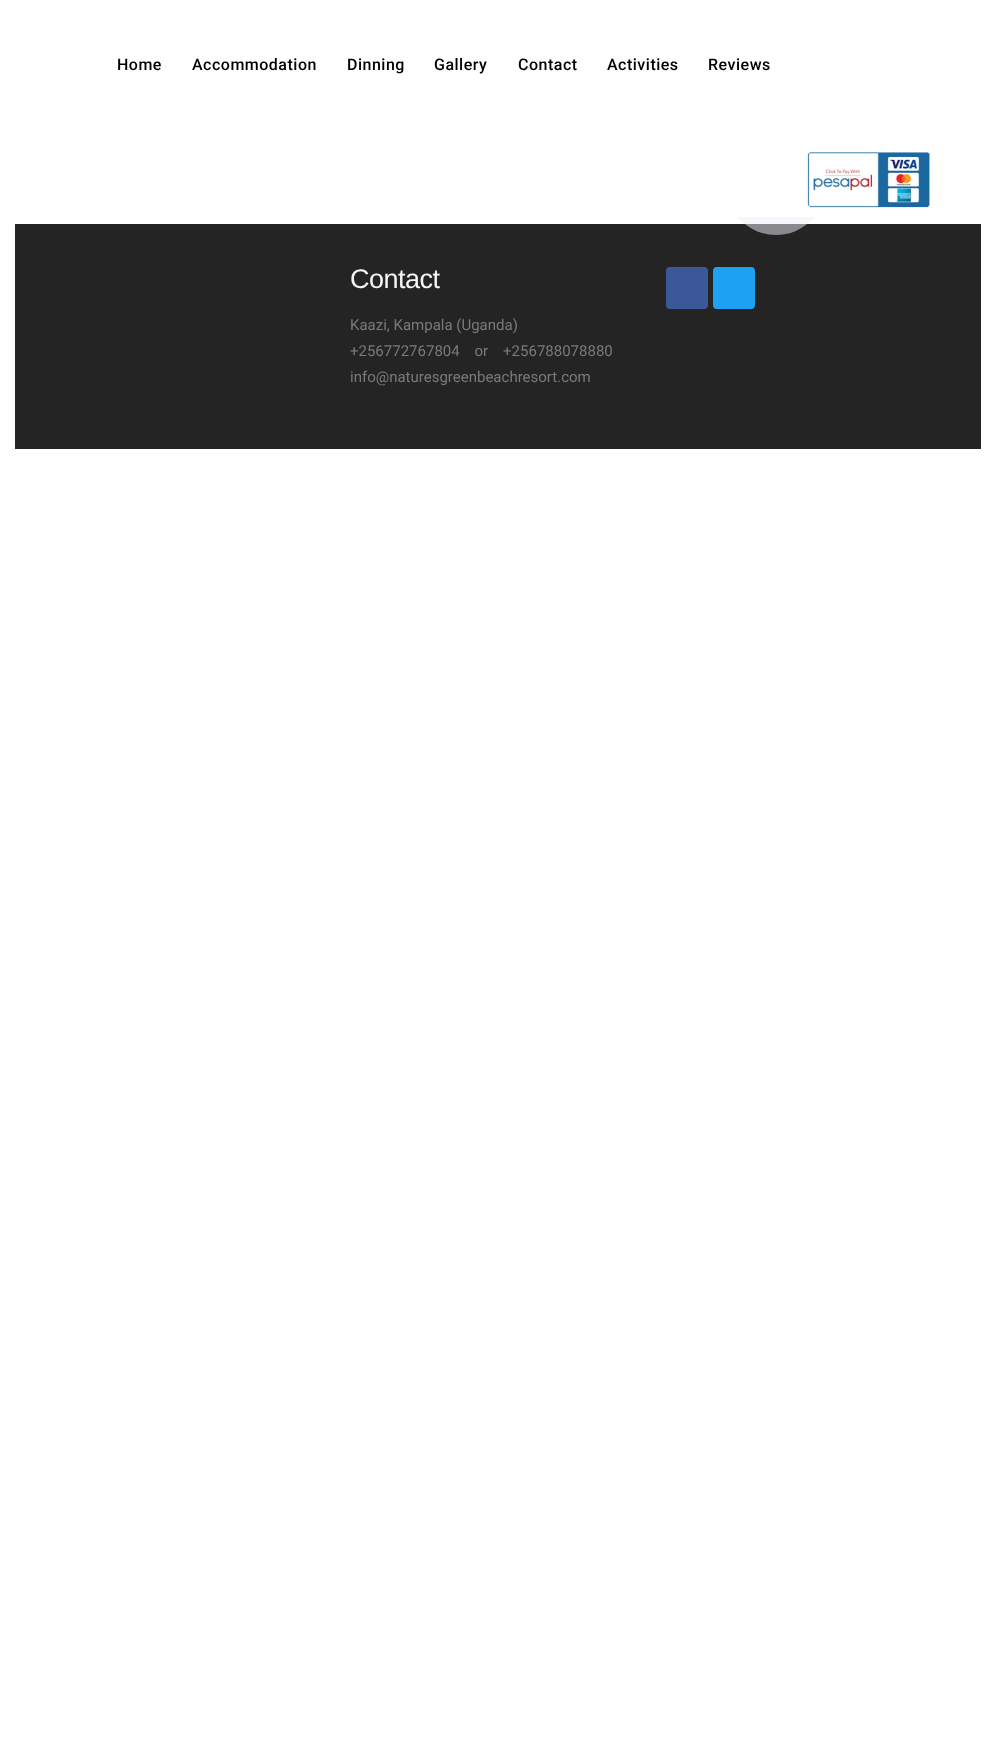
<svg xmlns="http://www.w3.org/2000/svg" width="996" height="1743">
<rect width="100%" height="100%" fill="#fff"/>
<rect x="15" y="224" width="966" height="225" fill="#242424"/>
<circle cx="776" cy="185" r="50" fill="#edf0f580"/>
<rect x="726" y="135" width="100" height="82" fill="#fff"/>
<text x="117" y="70" style="font-family:Roboto;font-size:16px;font-weight:500;letter-spacing:0.5px;fill:#000">Home</text>
<text x="192" y="70" style="font-family:Roboto;font-size:16px;font-weight:500;letter-spacing:0.5px;fill:#000">Accommodation</text>
<text x="347" y="70" style="font-family:Roboto;font-size:16px;font-weight:500;letter-spacing:0.5px;fill:#000">Dinning</text>
<text x="434" y="70" style="font-family:Roboto;font-size:16px;font-weight:500;letter-spacing:0.5px;fill:#000">Gallery</text>
<text x="518" y="70" style="font-family:Roboto;font-size:16px;font-weight:500;letter-spacing:0.5px;fill:#000">Contact</text>
<text x="607" y="70" style="font-family:Roboto;font-size:16px;font-weight:500;letter-spacing:0.5px;fill:#000">Activities</text>
<text x="708" y="70" style="font-family:Roboto;font-size:16px;font-weight:500;letter-spacing:0.5px;fill:#000">Reviews</text>
<image x="807" y="152" width="123" height="56" href="media/1.png"/>
<text x="350" y="288" style="font-family:Liberation Sans;font-size:27px;letter-spacing:-0.5px;fill:#f6f6f6">Contact</text>
<text x="350" y="330" style="font-family:Roboto;font-size:15px;fill:#7a7a7a">Kaazi, Kampala (Uganda)</text>
<text x="350" y="356" style="font-family:Roboto;font-size:15px;fill:#7a7a7a" xml:space="preserve">+256772767804    or    +256788078880</text>
<text x="350" y="382" style="font-family:Roboto;font-size:15px;fill:#7a7a7a">info@naturesgreenbeachresort.com</text>
<rect x="666" y="267" width="42" height="42" rx="4" fill="#3b5998"/>
<rect x="713" y="267" width="42" height="42" rx="4" fill="#1da1f2"/>
</svg>
